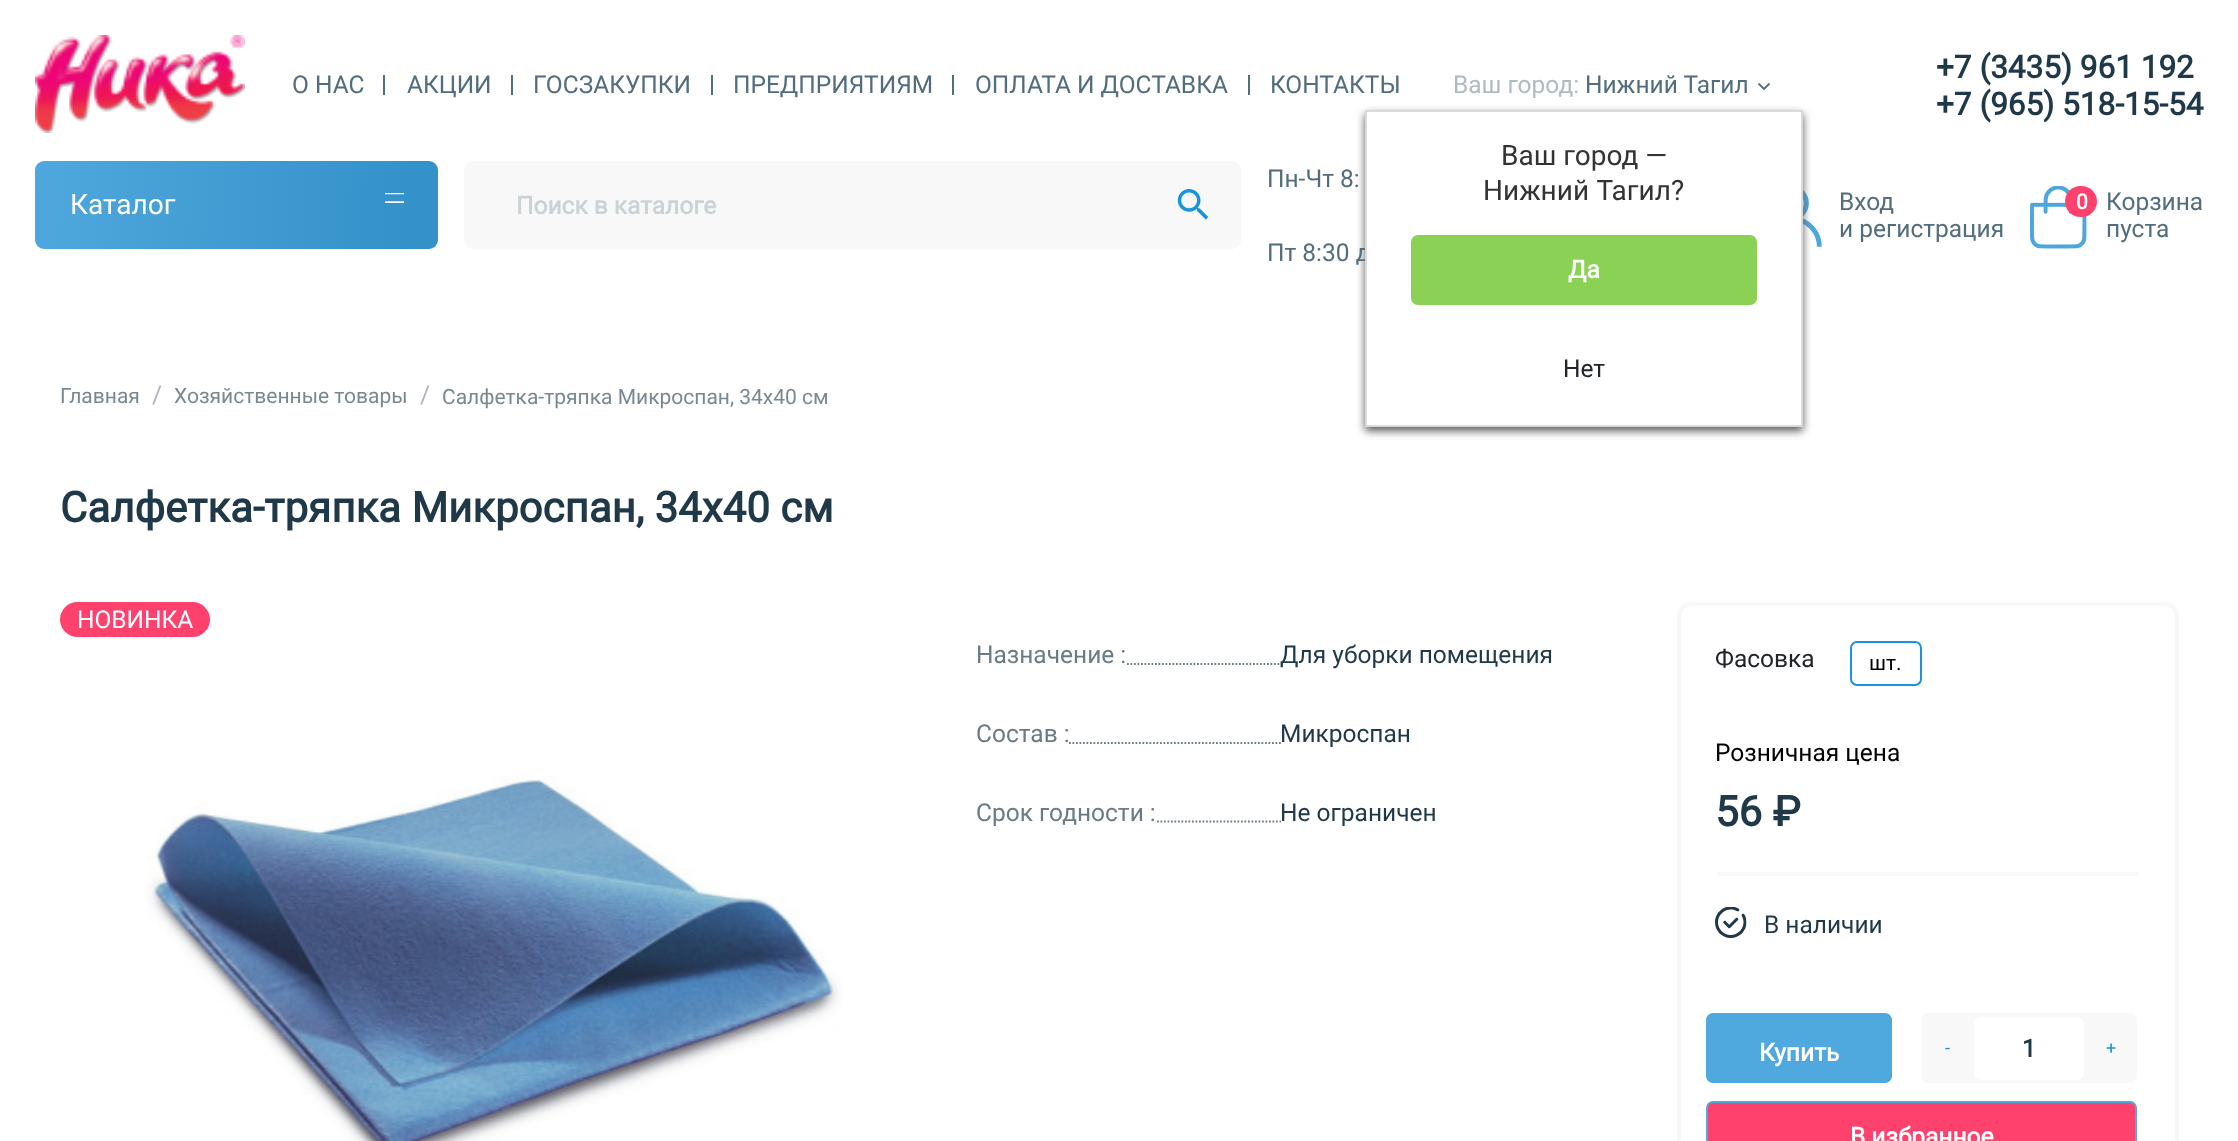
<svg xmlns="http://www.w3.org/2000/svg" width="2238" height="1141">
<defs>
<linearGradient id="g1" gradientUnits="userSpaceOnUse" x1="33" y1="195" x2="439" y2="214"><stop offset="0" stop-color="#4fa8dd"/><stop offset="0.93" stop-color="#3491c9"/></linearGradient>
</defs>
<rect width="100%" height="100%" fill="#fff"/>
<image x="35" y="35" width="210" height="98" href="media/1.png"/>
<text x="292" y="93" style="font-family:Roboto;font-size:24.5px;fill:#526e7e">О НАС</text>
<rect x="383" y="75" width="2" height="20" fill="#526e7e"/>
<text x="407" y="93" style="font-family:Roboto;font-size:24.5px;fill:#526e7e">АКЦИИ</text>
<rect x="511" y="75" width="2" height="20" fill="#526e7e"/>
<text x="533" y="93" style="font-family:Roboto;font-size:24.5px;fill:#526e7e">ГОСЗАКУПКИ</text>
<rect x="711" y="75" width="2" height="20" fill="#526e7e"/>
<text x="733" y="93" style="font-family:Roboto;font-size:24.5px;fill:#526e7e">ПРЕДПРИЯТИЯМ</text>
<rect x="952" y="75" width="2" height="20" fill="#526e7e"/>
<text x="975" y="93" style="font-family:Roboto;font-size:24.5px;fill:#526e7e">ОПЛАТА И ДОСТАВКА</text>
<rect x="1248" y="75" width="2" height="20" fill="#526e7e"/>
<text x="1270" y="93" style="font-family:Roboto;font-size:24.5px;fill:#526e7e">КОНТАКТЫ</text>
<text x="1453" y="93" style="font-family:Roboto;font-size:24.5px;fill:#aebbc2">Ваш город:</text>
<text x="1585" y="93" style="font-family:Roboto;font-size:24.5px;fill:#526e7e">Нижний Тагил</text>
<path d="M1759 84l5 5l5-5" fill="none" stroke="#526e7e" stroke-width="1.8" stroke-linecap="round"/>
<image x="1803" y="190" width="19" height="57" href="media/4.png"/>
<rect x="1365" y="114" width="438" height="317" fill="#5b5a5a" filter="blur(4.5px)"/>
<text x="1267" y="261" style="font-family:Roboto;font-size:24.5px;fill:#526e7e">Пт 8:30 д</text>
<rect x="1366" y="111" width="436" height="315" fill="#fff" stroke="#dadada" stroke-width="2"/>
<text x="1501" y="165" style="font-family:Roboto;font-size:28px;fill:#333">Ваш город —</text>
<text x="1483" y="200" word-spacing="1" style="font-family:Roboto;font-size:28px;fill:#333">Нижний Тагил</text>
<text x="1671" y="200" style="font-family:Roboto;font-size:28px;fill:#333">?</text>
<rect x="1411" y="235" width="346" height="70" rx="7" fill="#8bd155"/>
<text x="1568" y="278" style="font-family:Roboto;font-size:24.5px;font-weight:bold;fill:#fff">Да</text>
<text x="1563" y="377" style="font-family:Roboto;font-size:24.5px;fill:#212529">Нет</text>
<text x="1936" y="78" style="font-family:Roboto;font-size:31.5px;font-weight:bold;fill:#1f3948">+7 (3435) 961 192</text>
<text x="1936" y="115" style="font-family:Roboto;font-size:31.5px;font-weight:bold;fill:#1f3948">+7 (965) 518-15-54</text>
<rect x="35" y="161" width="403" height="88" rx="9" fill="url(#g1)"/>
<text x="70" y="214" style="font-family:Roboto;font-size:28px;fill:#fff">Каталог</text>
<image x="385" y="193" width="19" height="10" href="media/2.png"/>
<rect x="464" y="161" width="777" height="88" rx="9" fill="#f8f8f8"/>
<text x="516" y="214" style="font-family:Roboto;font-size:24.5px;font-weight:bold;fill:#cbd3d7">Поиск в каталоге</text>
<image x="1177" y="189" width="32" height="31" href="media/3.png"/>
<text x="1267" y="187" style="font-family:Roboto;font-size:24.5px;fill:#526e7e">Пн-Чт 8:</text>
<text x="1839" y="210" style="font-family:Roboto;font-size:24.5px;fill:#526e7e">Вход</text>
<text x="1839" y="237" style="font-family:Roboto;font-size:24.5px;fill:#526e7e">и регистрация</text>
<image x="2030" y="186" width="57" height="63" href="media/5.png"/>
<rect x="2065" y="186" width="32" height="31" rx="15.5" fill="#ff416e"/>
<text x="2076" y="209" style="font-family:Roboto;font-size:21px;font-weight:bold;fill:#fff">0</text>
<text x="2106" y="210" style="font-family:Roboto;font-size:24.5px;fill:#526e7e">Корзина</text>
<text x="2106" y="237" style="font-family:Roboto;font-size:24.5px;fill:#526e7e">пуста</text>
<text x="60" y="403" style="font-family:Roboto;font-size:21px;fill:#798891">Главная</text>
<text x="152" y="403" style="font-family:Roboto;font-size:24.5px;fill:#adb5bd">/</text>
<text x="174" y="403" style="font-family:Roboto;font-size:21px;fill:#798891">Хозяйственные товары</text>
<text x="420" y="403" style="font-family:Roboto;font-size:24.5px;fill:#adb5bd">/</text>
<text x="442" y="404" style="font-family:Roboto;font-size:21px;fill:#798891">Салфетка-тряпка Микроспан, 34х40 см</text>
<text x="60" y="522" style="font-family:Roboto;font-size:42px;font-weight:bold;fill:#1f3948">Салфетка-тряпка Микроспан, 34х40 см</text>
<rect x="60" y="602" width="150" height="35" rx="17.5" fill="#ff416e"/>
<text x="77" y="628" style="font-family:Roboto;font-size:24.5px;fill:#fff">НОВИНКА</text>
<image x="146" y="776" width="696" height="365" href="media/6.png"/>
<text x="976" y="663" style="font-family:Roboto;font-size:24.5px;fill:#6a7b85">Назначение :</text>
<path d="M1127 664h154" fill="none" stroke="#6a7b85" stroke-width="1.8" stroke-dasharray="1.75 1.75"/>
<text x="1280" y="663" style="font-family:Roboto;font-size:24.5px;fill:#1f3948">Для уборки помещения</text>
<text x="976" y="742" style="font-family:Roboto;font-size:24.5px;fill:#6a7b85">Состав :</text>
<path d="M1069 743h212" fill="none" stroke="#6a7b85" stroke-width="1.8" stroke-dasharray="1.75 1.75"/>
<text x="1280" y="742" style="font-family:Roboto;font-size:24.5px;fill:#1f3948">Микроспан</text>
<text x="976" y="821" style="font-family:Roboto;font-size:24.5px;fill:#6a7b85">Срок годности :</text>
<path d="M1157 821.5h124" fill="none" stroke="#6a7b85" stroke-width="1.8" stroke-dasharray="1.75 1.75"/>
<text x="1280" y="821" style="font-family:Roboto;font-size:24.5px;fill:#1f3948">Не ограничен</text>
<rect x="1679" y="604" width="498" height="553" rx="12" fill="none" stroke="#f8f8f8" stroke-width="4"/>
<text x="1715" y="667" style="font-family:Roboto;font-size:24.5px;fill:#212529">Фасовка</text>
<rect x="1851" y="642" width="70" height="43" rx="6" fill="none" stroke="#1994dc" stroke-width="2"/>
<text x="1869" y="670" style="font-family:Roboto;font-size:21px;fill:#000">шт.</text>
<text x="1715" y="761" style="font-family:Roboto;font-size:24.5px;fill:#000">Розничная цена</text>
<text x="1715" y="826" style="font-family:Roboto;font-size:42px;font-weight:bold;fill:#1f3948">56 ₽</text>
<rect x="1717" y="872" width="422" height="4" fill="#f8f8f8"/>
<image x="1715" y="907" width="32" height="31" href="media/7.png"/>
<text x="1764" y="933" style="font-family:Roboto;font-size:24.5px;fill:#1f3948">В наличии</text>
<rect x="1706" y="1013" width="186" height="70" rx="7" fill="#4fa9de"/>
<text x="1759" y="1061" style="font-family:Roboto;font-size:24.5px;font-weight:bold;fill:#fff">Купить</text>
<rect x="1922" y="1013" width="215" height="70" rx="7" fill="#f8f8f8"/>
<text x="1945" y="1054" style="font-family:Roboto;font-size:18px;fill:#1994dc">-</text>
<rect x="1974" y="1017" width="110" height="63" rx="7" fill="#fff"/>
<text x="2022" y="1057" style="font-family:Roboto;font-size:24.5px;font-weight:bold;fill:#1f3948">1</text>
<text x="2106" y="1054" style="font-family:Roboto;font-size:18px;fill:#1994dc">+</text>
<rect x="1707" y="1102" width="429" height="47" rx="6" fill="#ff416e" stroke="#4fa9de" stroke-width="2"/>
<text x="1850" y="1145" style="font-family:Roboto;font-size:24.5px;font-weight:bold;fill:#fff">В избранное</text>
</svg>
